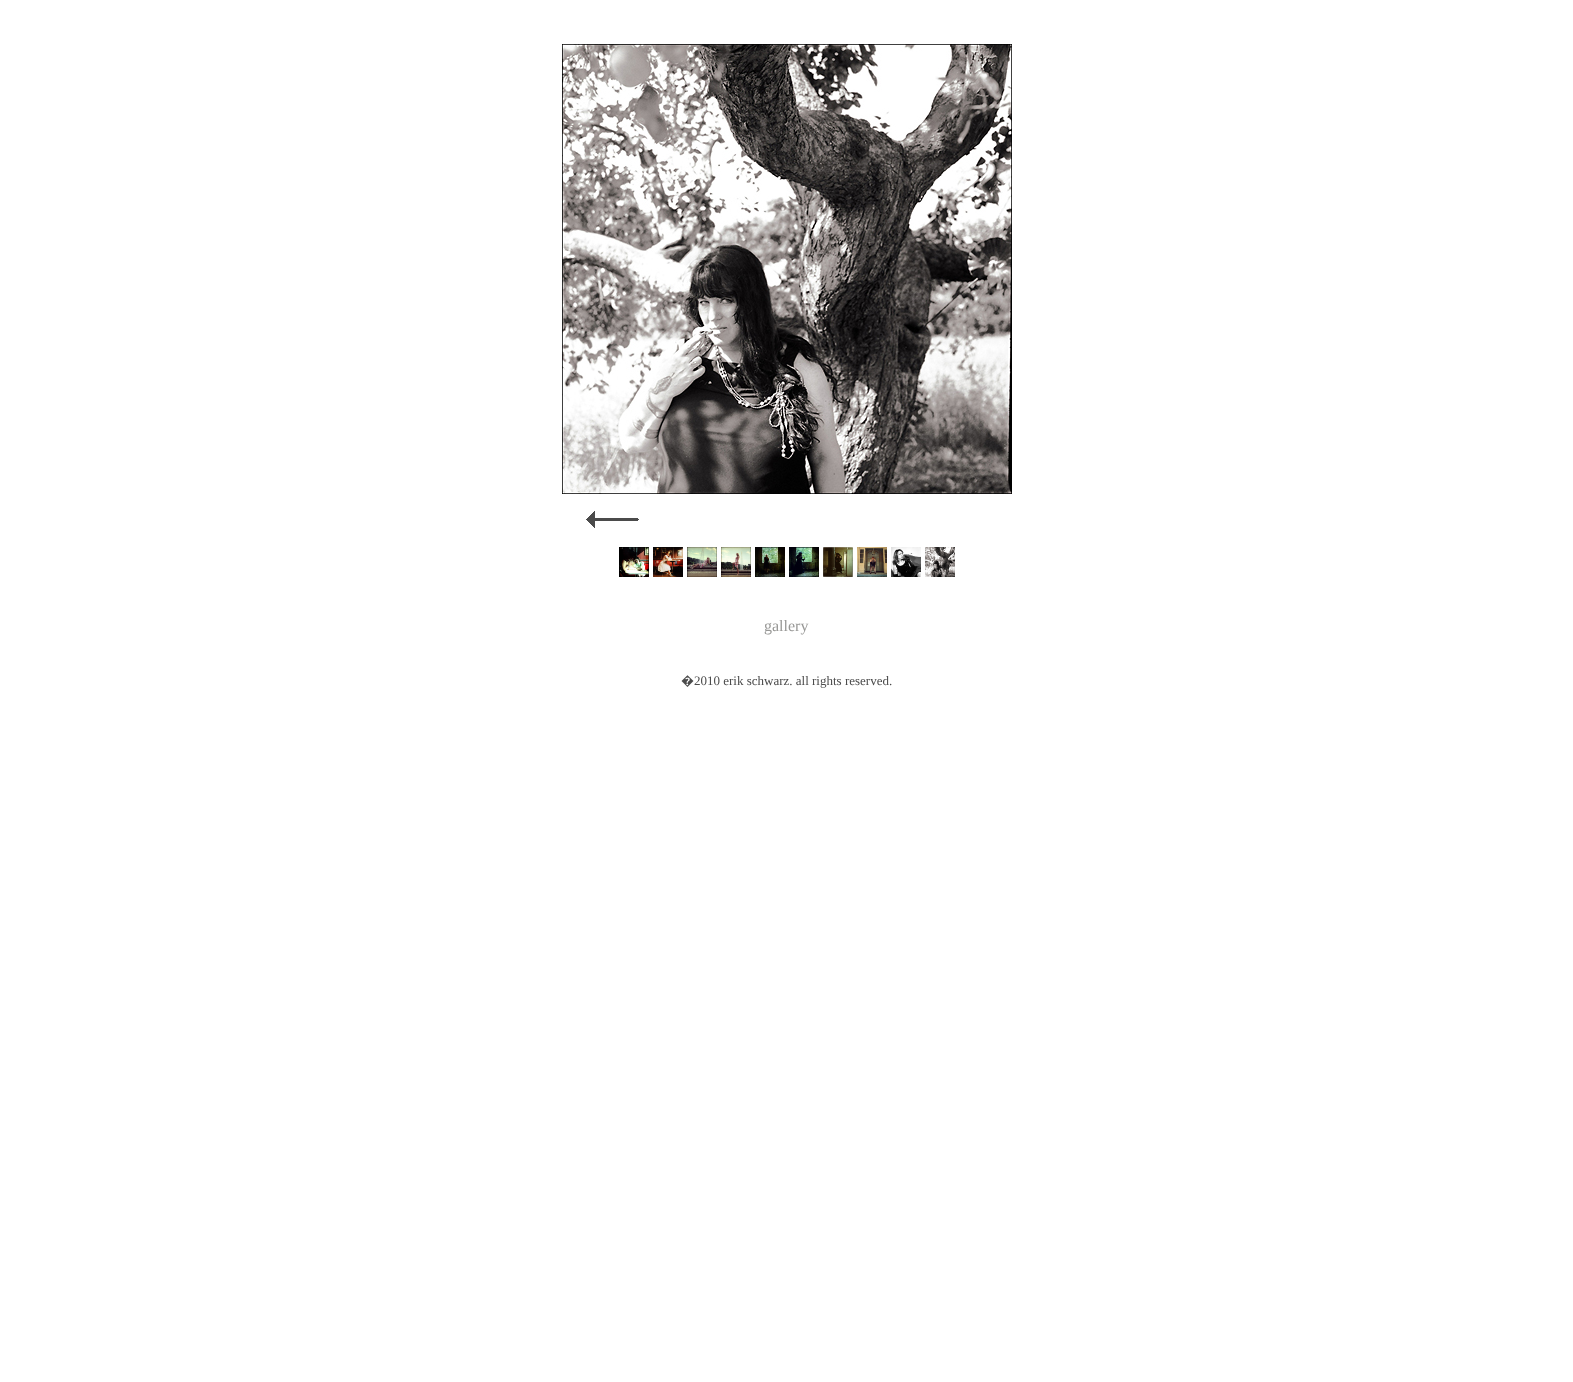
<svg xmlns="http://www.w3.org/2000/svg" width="1573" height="1382">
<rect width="100%" height="100%" fill="#fff"/>
<image x="562" y="44" width="450" height="450" href="media/1.png"/>
<image x="586" y="511" width="53" height="17" href="media/2.png"/>
<image x="619" y="547" width="30" height="30" href="media/3.png"/>
<image x="653" y="547" width="30" height="30" href="media/4.png"/>
<image x="687" y="547" width="30" height="30" href="media/5.png"/>
<image x="721" y="547" width="30" height="30" href="media/6.png"/>
<image x="755" y="547" width="30" height="30" href="media/7.png"/>
<image x="789" y="547" width="30" height="30" href="media/8.png"/>
<image x="823" y="547" width="30" height="30" href="media/9.png"/>
<image x="857" y="547" width="30" height="30" href="media/10.png"/>
<image x="891" y="547" width="30" height="30" href="media/11.png"/>
<image x="925" y="547" width="30" height="30" href="media/12.png"/>
<text x="764" y="631" style="font-family:Liberation Serif;font-size:16px;fill:#989896">gallery</text>
<text x="681" y="685" style="font-family:Noto Sans;font-size:13px;fill:#4b4b4b">�</text>
<text x="694" y="685" style="font-family:Liberation Serif;font-size:13px;fill:#4b4b4b">2010 erik schwarz. all rights reserved.</text>
</svg>
